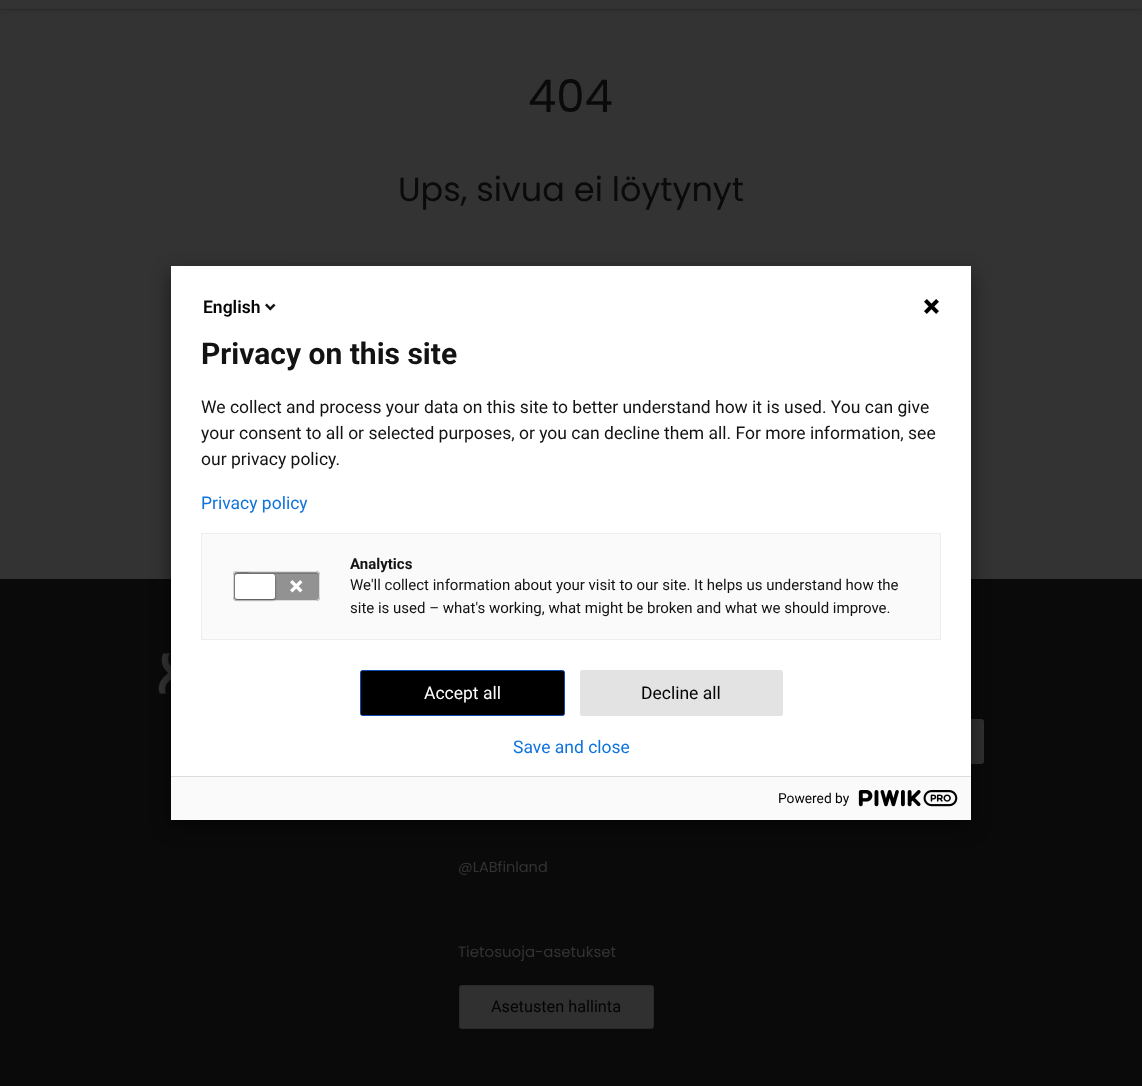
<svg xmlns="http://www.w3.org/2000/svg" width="1142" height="1086">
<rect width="100%" height="100%" fill="#333"/>
<path d="M0 9v1h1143v-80h-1v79z" fill="#303030"/>
<rect y="-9" width="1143" height="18" fill="#00000033" filter="blur(3px)"/>
<rect width="1142" height="8" fill="#333"/>
<rect y="8" width="1142" height="1" fill="#303030"/>
<text x="528" y="112" style="font-family:Poppins;font-size:45px;fill:#0a0a0a">404</text>
<text x="398" y="201" style="font-family:Poppins;font-size:33.5px;fill:#0a0a0a">Ups, sivua ei löytynyt</text>
<rect x="290" y="263" width="563" height="1" fill="#2f3030"/>
<rect y="579" width="1142" height="507" fill="#0a0a0a"/>
<image x="158" y="653" width="13" height="41" href="media/1.png"/>
<rect x="759.5" y="719.5" width="224" height="44" rx="2" fill="#303030" stroke="#2f3030"/>
<text x="458" y="872" style="font-family:Poppins;font-size:14.5px;fill:#333">@LABfinland</text>
<text x="458" y="957" style="font-family:Poppins;font-size:15px;fill:#333">Tietosuoja-asetukset</text>
<rect x="459.5" y="985.5" width="194" height="43" rx="2" fill="#303030" stroke="#292929"/>
<text x="491" y="1012" style="font-family:Roboto;font-size:16.25px;fill:#040404">Asetusten hallinta</text>
<rect x="171" y="273" width="800" height="553" fill="#00000080" filter="blur(9.5px)"/>
<rect x="171" y="266" width="800" height="510" fill="#fff"/>
<text x="203" y="313" style="font-family:Roboto;font-size:17.5px;font-weight:600;fill:#040404">English</text>
<image x="265" y="303" width="11" height="8" href="media/2.png"/>
<image x="924" y="299" width="15" height="15" href="media/3.png"/>
<text x="201" y="364" style="font-family:Roboto;font-size:30px;font-weight:bold;fill:#131313">Privacy on this site</text>
<text x="201" y="413" style="font-family:Roboto;font-size:17.5px;fill:#131313">We collect and process your data on this site to better understand how it is used. You can give</text>
<text x="201" y="439" style="font-family:Roboto;font-size:17.5px;fill:#131313">your consent to all or selected purposes, or you can decline them all. For more information, see</text>
<text x="201" y="465" style="font-family:Roboto;font-size:17.5px;fill:#131313">our privacy policy.</text>
<text x="201" y="509" style="font-family:Roboto;font-size:17.5px;fill:#0f73dc">Privacy policy</text>
<rect x="201.5" y="533.5" width="739" height="106" fill="#fafafa" stroke="#eee"/>
<rect x="233" y="571" width="87" height="30" rx="4" fill="#929292"/>
<path d="M236 574h80c2 0 3 1 3 2c0-2-1-3-3-3h-66c0 0-16-4-16 3c0-1 1-2 2-2z" fill="#757575"/>
<rect x="233.5" y="571.5" width="86" height="29" rx="3.5" fill="none" stroke="#ddd"/>
<rect x="235" y="575" width="40" height="25" rx="2.5" fill="#00000080" filter="blur(1px)"/>
<rect x="235" y="574" width="40" height="25" rx="2.5" fill="#fff"/>
<image x="290" y="580" width="13" height="13" href="media/4.png"/>
<text x="350" y="569" style="font-family:Roboto;font-size:15px;font-weight:bold;fill:#131313">Analytics</text>
<text x="350" y="590" style="font-family:Roboto;font-size:15px;fill:#131313">We'll collect information about your visit to our site. It helps us understand how the</text>
<text x="350" y="613" style="font-family:Roboto;font-size:15px;fill:#131313">site is used – what's working, what might be broken and what we should improve.</text>
<rect x="360.5" y="670.5" width="204" height="45" rx="2" fill="#000" stroke="#0b4bb3"/>
<text x="424" y="699" style="font-family:Roboto;font-size:17.5px;fill:#fff">Accept all</text>
<rect x="580" y="670" width="203" height="46" rx="2.5" fill="#e3e3e3"/>
<text x="641" y="699" style="font-family:Roboto;font-size:17.5px;fill:#040404">Decline all</text>
<text x="513" y="753" style="font-family:Roboto;font-size:17.5px;fill:#0f73dc">Save and close</text>
<rect x="171" y="777" width="800" height="43" fill="#fafafa"/>
<rect x="171" y="776" width="800" height="1" fill="#ddd"/>
<text x="778" y="803" style="font-family:Roboto;font-size:13.75px;fill:#040404">Powered by</text>
<image x="858" y="790" width="100" height="17" href="media/5.png"/>
</svg>
